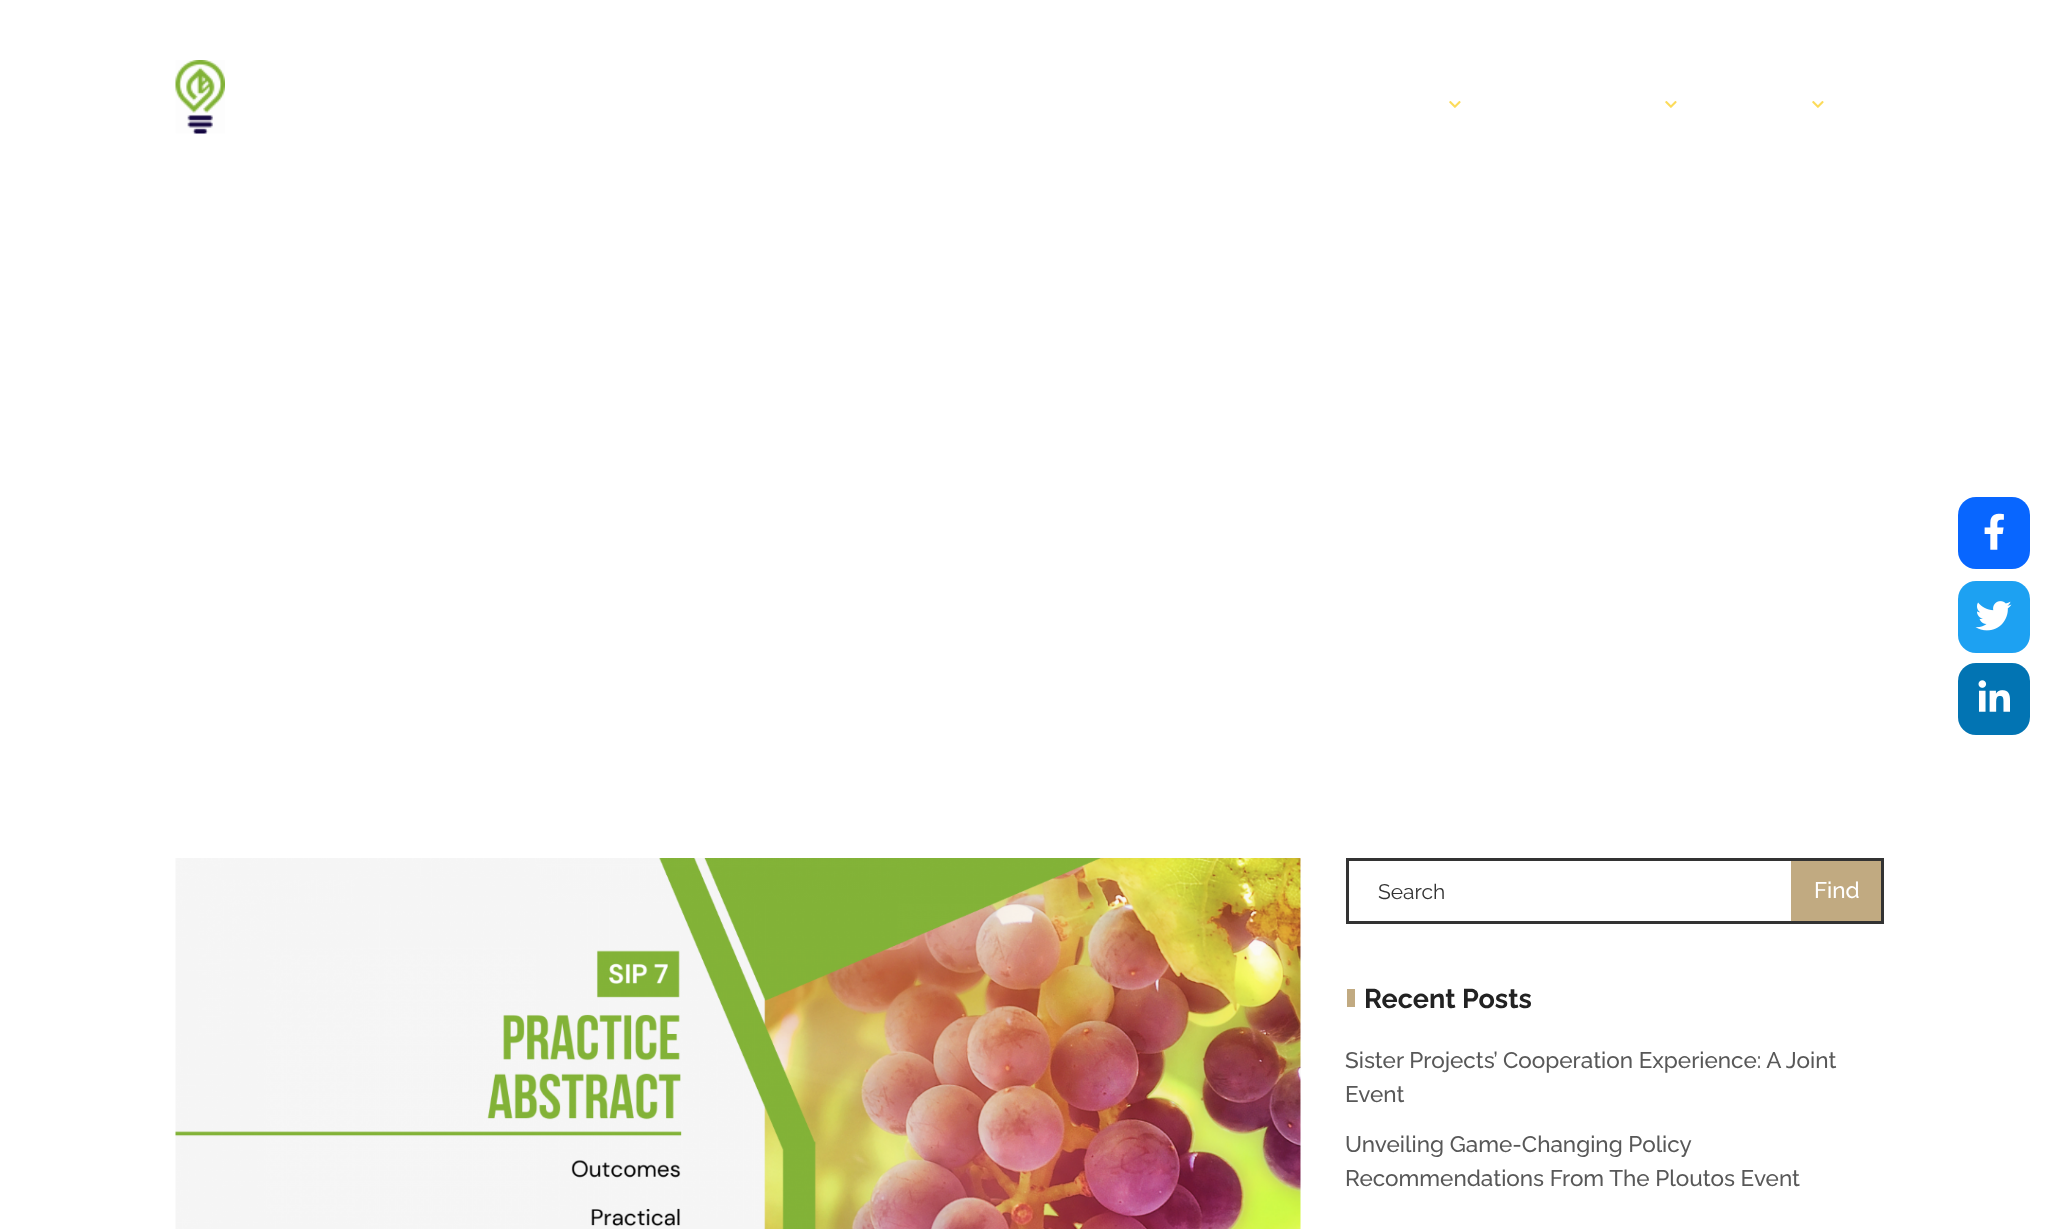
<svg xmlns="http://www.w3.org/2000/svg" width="2059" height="1229">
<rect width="100%" height="100%" fill="#fff"/>
<image x="175" y="60" width="50" height="74" href="media/1.png"/>
<image x="1449" y="101" width="12" height="7" href="media/2.png"/>
<image x="1665" y="101" width="12" height="7" href="media/2.png"/>
<image x="1812" y="101" width="12" height="7" href="media/2.png"/>
<rect x="1958" y="497" width="72" height="72" rx="18" fill="#0866ff"/>
<image x="1984" y="513" width="20" height="37" href="media/3.png"/>
<rect x="1958" y="581" width="72" height="72" rx="18" fill="#1da1f2"/>
<image x="1975" y="601" width="37" height="30" href="media/4.png"/>
<rect x="1958" y="663" width="72" height="72" rx="18" fill="#0274b3"/>
<image x="1978" y="680" width="32" height="32" href="media/5.png"/>
<image x="175" y="858" width="1126" height="371" href="media/6.png"/>
<rect x="1347.5" y="859.5" width="535" height="63" fill="none" stroke="#333" stroke-width="3"/>
<text x="1378" y="899" style="font-family:Raleway;font-size:21px;fill:#333">Search</text>
<rect x="1791" y="861" width="90" height="60" fill="#c1aa81"/>
<text x="1814" y="898" style="font-family:Raleway;font-size:22.5px;font-weight:500;fill:#fff">Find</text>
<rect x="1347" y="989" width="8" height="18" fill="#c1aa81"/>
<text x="1364" y="1008" style="font-family:Raleway;font-size:27px;font-weight:bold;fill:#222">Recent Posts</text>
<text x="1345" y="1068" style="font-family:Raleway;font-size:22.5px;font-weight:500;fill:#585858">Sister Projects’ Cooperation Experience: A Joint</text>
<text x="1345" y="1102" style="font-family:Raleway;font-size:22.5px;font-weight:500;fill:#585858">Event</text>
<text x="1345" y="1152" style="font-family:Raleway;font-size:22.5px;font-weight:500;fill:#585858">Unveiling Game-Changing Policy</text>
<text x="1345" y="1186" style="font-family:Raleway;font-size:22.5px;font-weight:500;fill:#585858">Recommendations From The Ploutos Event</text>
</svg>
